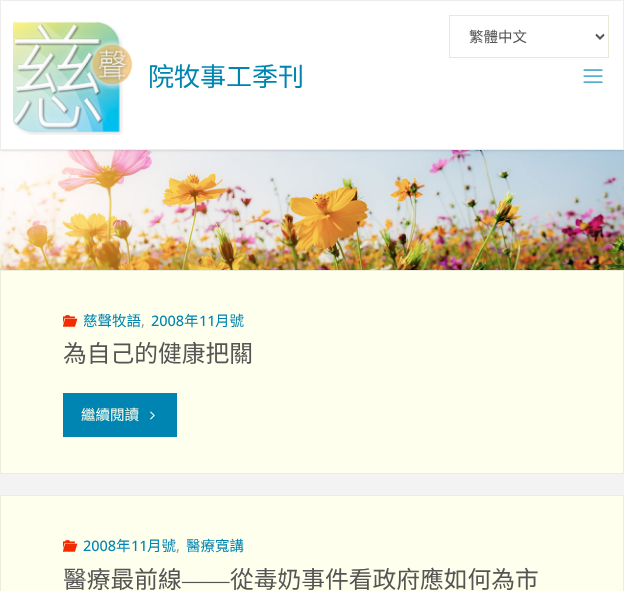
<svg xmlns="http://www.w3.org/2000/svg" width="624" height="591">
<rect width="100%" height="100%" fill="#f3f3f3"/>
<image x="0" y="150" width="624" height="120" href="media/3.png"/>
<rect width="624" height="150" fill="#00000033" filter="blur(1.5px)"/>
<rect x="0.5" y="0.5" width="623" height="149" fill="#fff" stroke="#ededed"/>
<rect x="449.5" y="15.5" width="159" height="42" fill="none" stroke="#e9e9d7"/>
<path d="M596 34.5l4 4l4-4" fill="none" stroke="#555" stroke-width="2"/>
<text x="469" y="42" style="font-family:Noto Sans CJK HK;font-size:14.5px;fill:#555">繁體中文</text>
<image x="13" y="21" width="120" height="114" href="media/1.png"/>
<text x="148" y="86" style="font-family:Noto Sans CJK HK;font-size:26px;fill:#0085b2">院牧事工季刊</text>
<image x="583" y="69" width="20" height="14" href="media/2.png"/>
<rect x="0.5" y="270.5" width="623" height="203" fill="#ffffed" stroke="#ededdc"/>
<image x="63" y="315" width="15" height="12" href="media/4.png"/>
<text x="83" y="326" style="font-family:Noto Sans CJK HK;font-size:14.5px;fill:#0085b2">慈聲牧語</text>
<text x="141" y="326" style="font-family:Open Sans;font-size:14.5px;font-weight:500;fill:#9a9a9a">,</text>
<text x="151" y="326" style="font-family:Open Sans;font-size:14.5px;font-weight:500;fill:#0085b2">2008</text>
<text x="184" y="326" style="font-family:Noto Sans CJK HK;font-size:14.5px;fill:#0085b2">年</text>
<text x="199" y="326" style="font-family:Open Sans;font-size:14.5px;font-weight:500;fill:#0085b2">11</text>
<text x="215" y="326" style="font-family:Noto Sans CJK HK;font-size:14.5px;fill:#0085b2">月號</text>
<text x="63" y="362" style="font-family:Noto Sans CJK HK;font-size:23.75px;fill:#555">為自己的健康把關</text>
<rect x="63" y="393" width="114" height="44" fill="#0085b2"/>
<text x="81" y="420" style="font-family:Noto Sans CJK HK;font-size:14.5px;fill:#ffffed">繼續閱讀</text>
<image x="150" y="411" width="5" height="9" href="media/5.png"/>
<rect x="0.5" y="495.5" width="623" height="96" fill="#ffffed" stroke="#ededdc"/>
<image x="63" y="540" width="15" height="12" href="media/4.png"/>
<text x="83" y="551" style="font-family:Open Sans;font-size:14.5px;font-weight:500;fill:#0085b2">2008</text>
<text x="116" y="551" style="font-family:Noto Sans CJK HK;font-size:14.5px;fill:#0085b2">年</text>
<text x="131" y="551" style="font-family:Open Sans;font-size:14.5px;font-weight:500;fill:#0085b2">11</text>
<text x="147" y="551" style="font-family:Noto Sans CJK HK;font-size:14.5px;fill:#0085b2">月號</text>
<text x="176" y="551" style="font-family:Open Sans;font-size:14.5px;font-weight:500;fill:#9a9a9a">,</text>
<text x="186" y="551" style="font-family:Noto Sans CJK HK;font-size:14.5px;fill:#0085b2">醫療寬講</text>
<text x="63" y="588" style="font-family:Noto Sans CJK HK;font-size:23.75px;fill:#555">醫療最前線</text>
<text x="182" y="588" style="font-family:Liberation Serif;font-size:23.75px;fill:#555">——</text>
<text x="230" y="588" style="font-family:Noto Sans CJK HK;font-size:23.75px;fill:#555">從毒奶事件看政府應如何為市</text>
</svg>
